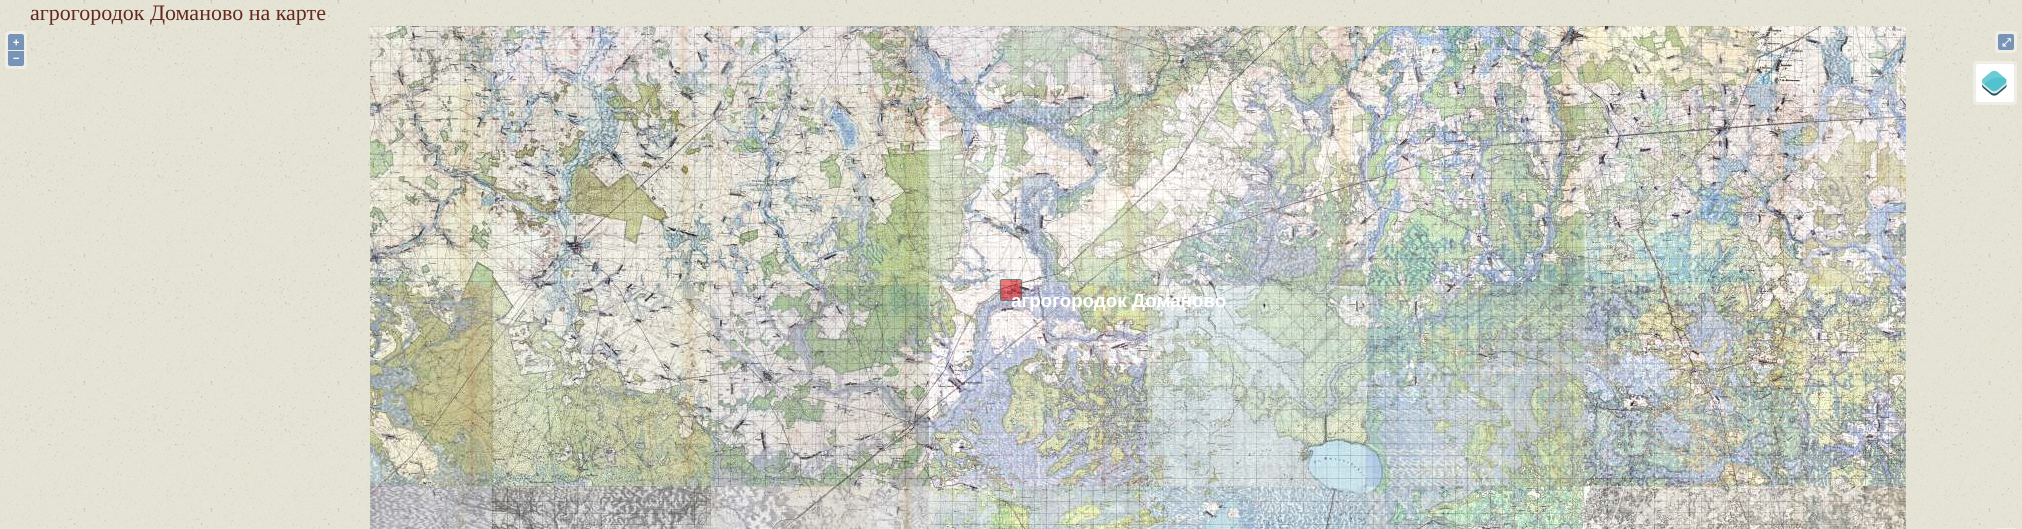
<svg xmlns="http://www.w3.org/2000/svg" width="2022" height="529">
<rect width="100%" height="100%" fill="#fff"/>
<image x="0" y="0" width="2022" height="529" href="media/1.png"/>
<text x="30" y="20" style="font-family:Liberation Serif;font-size:22px;fill:#65291d">агрогородок Доманово на карте</text>
<image x="370" y="26" width="1536" height="503" href="media/2.png"/>
<rect x="5" y="31" width="22" height="38" rx="4" fill="#ffffff66"/>
<path d="M10 34h12c1 0 2 1 2 2v14h-16v-14c0-1 1-2 2-2z" fill="#003c8880"/>
<text x="13" y="46" style="font-family:Liberation Sans;font-size:11px;font-weight:bold;fill:#fff">+</text>
<path d="M8 51h16v13c0 1-1 2-2 2h-12c-1 0-2-1-2-2z" fill="#003c8880"/>
<text x="13" y="62" style="font-family:Liberation Sans;font-size:11px;font-weight:bold;fill:#fff">−</text>
<rect x="1995" y="31" width="22" height="22" rx="4" fill="#ffffff66"/>
<rect x="1998" y="34" width="16" height="16" rx="2" fill="#003c8880"/>
<text x="2002" y="46" style="font-family:FreeSerif;font-size:11px;font-weight:bold;fill:#fff">⤢</text>
<rect x="1973" y="61" width="44" height="44" rx="4" fill="#ffffff66"/>
<rect x="1976" y="64" width="38" height="38" rx="2" fill="#fff"/>
<image x="1982" y="70" width="25" height="26" href="media/3.png"/>
<rect x="1000" y="279" width="22" height="22" rx="2" fill="#da000080"/>
<rect x="1000.5" y="279.5" width="21" height="21" rx="1.5" fill="none" stroke="#00888880"/>
<text x="1011" y="307" style="font-family:Liberation Sans;font-size:18.75px;font-weight:bold;fill:#fff">агрогородок Доманово</text>
<rect x="1995" y="528" width="22" height="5" rx="4" fill="#f0eee6"/>
</svg>
